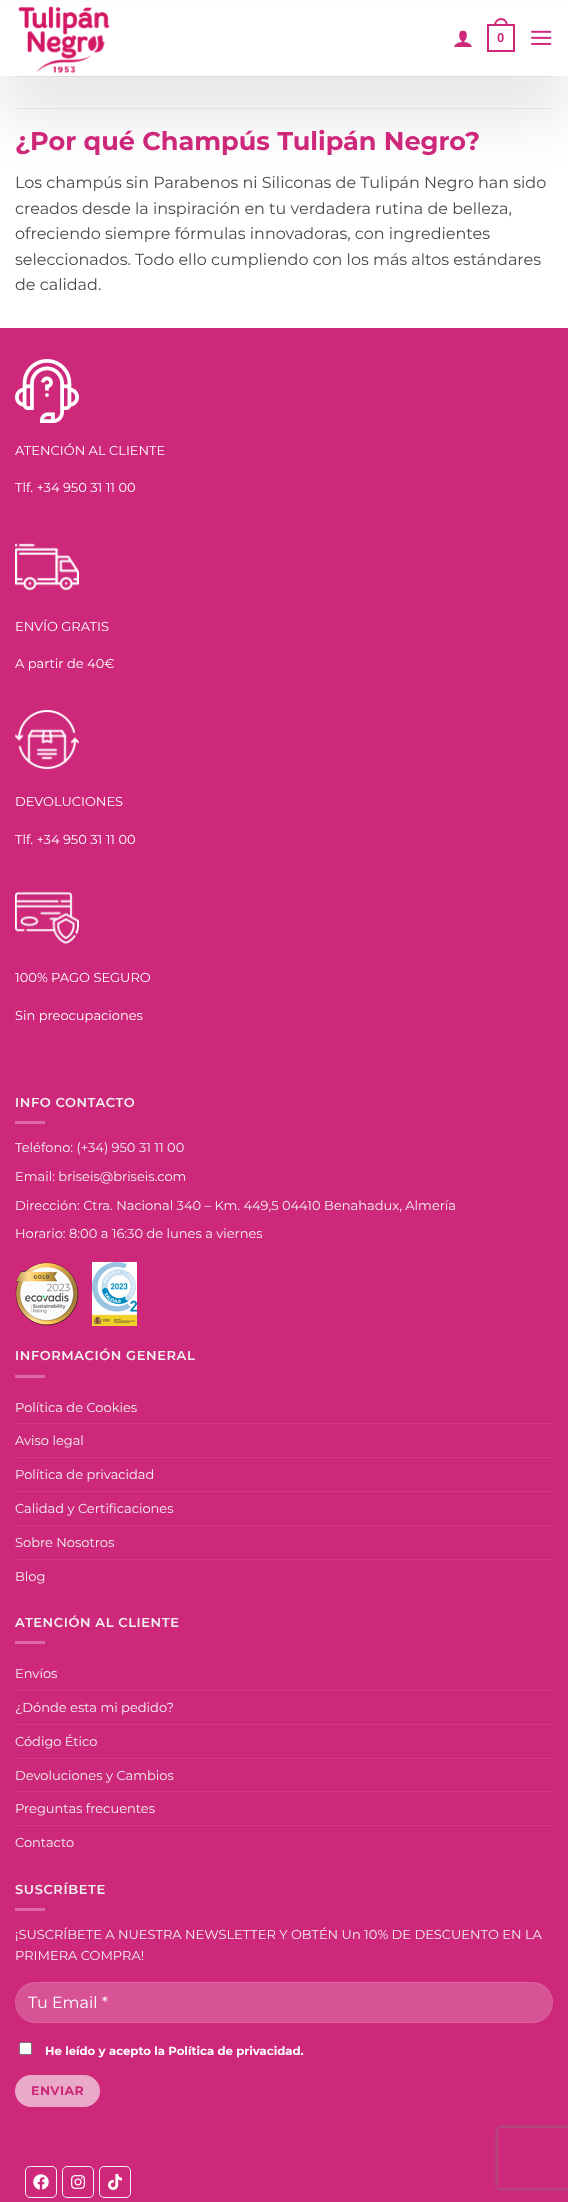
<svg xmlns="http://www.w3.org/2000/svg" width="568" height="2202">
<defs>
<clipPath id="clip1"><path d="M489 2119h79v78h-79zm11 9h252c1 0 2 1 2 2v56c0 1-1 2-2 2h-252c-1 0-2-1-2-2v-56c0-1 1-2 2-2z" clip-rule="evenodd"/></clipPath>
</defs>
<rect width="100%" height="100%" fill="#fff"/>
<rect x="15" y="108" width="538" height="1" fill="#f2f2f2"/>
<rect y="40" width="568" height="76" fill="#0000001a" filter="blur(30px)"/>
<rect y="2" width="568" height="74" fill="#fff"/>
<image x="18" y="6" width="92" height="68" href="media/1.png"/>
<image x="454" y="30" width="18" height="17" href="media/2.png"/>
<rect x="488" y="25" width="26" height="26" fill="none" stroke="#ce287a" stroke-width="2"/>
<path d="M501 18c4.5 0 7 4 7 8h-14c0-4 2.5-8 7-8zm0 2c3.5 0 5 3 5 6h-10c0-3 1.5-6 5-6z" fill="#ce287a" fill-rule="evenodd"/>
<text x="497" y="42" style="font-family:Liberation Sans;font-size:13px;font-weight:bold;fill:#ce287a">0</text>
<image x="531" y="30" width="21" height="15" href="media/3.png"/>
<rect x="15" y="76" width="538" height="1" fill="#4a4a4a1a"/>
<text x="15" y="150" style="font-family:Montserrat;font-size:25.6px;font-weight:bold;fill:#ce287a">¿Por qué Champús Tulipán Negro?</text>
<text x="15" y="188" style="font-family:Montserrat;font-size:16px;fill:#4a4a4a">Los champús sin Parabenos ni Siliconas de Tulipán Negro han sido</text>
<text x="15" y="214" style="font-family:Montserrat;font-size:16px;fill:#4a4a4a">creados desde la inspiración en tu verdadera rutina de belleza,</text>
<text x="15" y="239" style="font-family:Montserrat;font-size:16px;fill:#4a4a4a">ofreciendo siempre fórmulas innovadoras, con ingredientes</text>
<text x="15" y="265" style="font-family:Montserrat;font-size:16px;fill:#4a4a4a">seleccionados. Todo ello cumpliendo con los más altos estándares</text>
<text x="15" y="290" style="font-family:Montserrat;font-size:16px;fill:#4a4a4a">de calidad.</text>
<rect y="329" width="568" height="1873" fill="#ce287a"/>
<rect y="328" width="568" height="1" fill="#c42674"/>
<image x="15" y="359" width="64" height="64" href="media/4.png"/>
<text x="15" y="455" style="font-family:Montserrat;font-size:13px;fill:#fff">ATENCIÓN AL CLIENTE</text>
<text x="15" y="492" style="font-family:Montserrat;font-size:13px;fill:#fff">Tlf. +34 950 31 11 00</text>
<image x="15" y="543" width="64" height="48" href="media/5.png"/>
<text x="15" y="631" style="font-family:Montserrat;font-size:13px;fill:#fff">ENVÍO GRATIS</text>
<text x="15" y="668" style="font-family:Montserrat;font-size:13px;fill:#fff">A partir de 40€</text>
<image x="15" y="710" width="64" height="60" href="media/6.png"/>
<text x="15" y="806" style="font-family:Montserrat;font-size:13px;fill:#fff">DEVOLUCIONES</text>
<text x="15" y="844" style="font-family:Montserrat;font-size:13px;fill:#fff">Tlf. +34 950 31 11 00</text>
<image x="15" y="891" width="64" height="54" href="media/7.png"/>
<text x="15" y="982" style="font-family:Montserrat;font-size:13px;fill:#fff">100% PAGO SEGURO</text>
<text x="15" y="1020" style="font-family:Montserrat;font-size:13px;fill:#fff">Sin preocupaciones</text>
<text x="15" y="1107" style="font-family:Montserrat;font-size:13px;font-weight:600;letter-spacing:0.6px;fill:#f1f1f1">INFO CONTACTO</text>
<rect x="15" y="1121" width="30" height="3" fill="#dd69a2"/>
<text x="15" y="1152" style="font-family:Montserrat;font-size:13px;fill:#f1f1f1">Teléfono: (+34) 950 31 11 00</text>
<text x="15" y="1181" style="font-family:Montserrat;font-size:13px;fill:#f1f1f1">Email: briseis@briseis.com</text>
<text x="15" y="1210" style="font-family:Montserrat;font-size:13px;fill:#f1f1f1">Dirección: Ctra. Nacional 340 – Km. 449,5 04410 Benahadux, Almería</text>
<text x="15" y="1238" style="font-family:Montserrat;font-size:13px;fill:#f1f1f1">Horario: 8:00 a 16:30 de lunes a viernes</text>
<image x="15" y="1262" width="64" height="64" href="media/8.png"/>
<image x="92" y="1262" width="45" height="64" href="media/9.png"/>
<text x="15" y="1360" style="font-family:Montserrat;font-size:13px;font-weight:600;letter-spacing:0.6px;fill:#f1f1f1">INFORMACIÓN GENERAL</text>
<rect x="15" y="1375" width="30" height="3" fill="#dd69a2"/>
<text x="15" y="1412" style="font-family:Montserrat;font-size:13px;fill:#f1f1f1">Política de Cookies</text>
<rect x="15" y="1423" width="538" height="1" fill="#d23985"/>
<text x="15" y="1445" style="font-family:Montserrat;font-size:13px;fill:#f1f1f1">Aviso legal</text>
<rect x="15" y="1457" width="538" height="1" fill="#d23985"/>
<text x="15" y="1479" style="font-family:Montserrat;font-size:13px;fill:#f1f1f1">Política de privacidad</text>
<rect x="15" y="1491" width="538" height="1" fill="#d23985"/>
<text x="15" y="1513" style="font-family:Montserrat;font-size:13px;fill:#f1f1f1">Calidad y Certificaciones</text>
<rect x="15" y="1525" width="538" height="1" fill="#d23985"/>
<text x="15" y="1547" style="font-family:Montserrat;font-size:13px;fill:#f1f1f1">Sobre Nosotros</text>
<rect x="15" y="1559" width="538" height="1" fill="#d23985"/>
<text x="15" y="1581" style="font-family:Montserrat;font-size:13px;fill:#f1f1f1">Blog</text>
<text x="15" y="1627" style="font-family:Montserrat;font-size:13px;font-weight:600;letter-spacing:0.6px;fill:#f1f1f1">ATENCIÓN AL CLIENTE</text>
<rect x="15" y="1641" width="30" height="3" fill="#dd69a2"/>
<text x="15" y="1678" style="font-family:Montserrat;font-size:13px;fill:#f1f1f1">Envíos</text>
<rect x="15" y="1690" width="538" height="1" fill="#d23985"/>
<text x="15" y="1712" style="font-family:Montserrat;font-size:13px;fill:#f1f1f1">¿Dónde esta mi pedido?</text>
<rect x="15" y="1724" width="538" height="1" fill="#d23985"/>
<text x="15" y="1746" style="font-family:Montserrat;font-size:13px;fill:#f1f1f1">Código Ético</text>
<rect x="15" y="1758" width="538" height="1" fill="#d23985"/>
<text x="15" y="1780" style="font-family:Montserrat;font-size:13px;fill:#f1f1f1">Devoluciones y Cambios</text>
<rect x="15" y="1791" width="538" height="1" fill="#d23985"/>
<text x="15" y="1813" style="font-family:Montserrat;font-size:13px;fill:#f1f1f1">Preguntas frecuentes</text>
<rect x="15" y="1825" width="538" height="1" fill="#d23985"/>
<text x="15" y="1847" style="font-family:Montserrat;font-size:13px;fill:#f1f1f1">Contacto</text>
<text x="15" y="1894" style="font-family:Montserrat;font-size:13px;font-weight:600;letter-spacing:0.6px;fill:#f1f1f1">SUSCRÍBETE</text>
<rect x="15" y="1908" width="30" height="3" fill="#dd69a2"/>
<text x="15" y="1939" style="font-family:Montserrat;font-size:13px;fill:#f1f1f1">¡SUSCRÍBETE A NUESTRA NEWSLETTER Y OBTÉN Un 10% DE DESCUENTO EN LA</text>
<text x="15" y="1960" style="font-family:Montserrat;font-size:13px;fill:#f1f1f1">PRIMERA COMPRA!</text>
<rect x="15" y="1982" width="538" height="41" rx="20.5" fill="#d85395"/>
<rect x="15.5" y="1982.5" width="537" height="40" rx="20" fill="none" stroke="#ffffff17"/>
<text x="28" y="2008" style="font-family:Montserrat;font-size:16px;fill:#fff">Tu Email *</text>
<rect x="19.5" y="2042.5" width="12" height="12" rx="1.5" fill="#fff" stroke="#767676"/>
<text x="45" y="2055" style="font-family:Montserrat;font-size:11.7px;font-weight:bold;fill:#fff">He leído y acepto la Política de privacidad.</text>
<rect x="15" y="2075" width="85" height="32" rx="16" fill="#eba9ca"/>
<text x="31" y="2095" style="font-family:Montserrat;font-size:12.5px;font-weight:bold;letter-spacing:0.5px;fill:#ce287a">ENVIAR</text>
<rect x="25.5" y="2166.5" width="31" height="31" rx="4.5" fill="none" stroke="#f1f1f1"/>
<image x="33" y="2174" width="16" height="16" href="media/10.png"/>
<rect x="62.5" y="2166.5" width="31" height="31" rx="4.5" fill="none" stroke="#f1f1f1"/>
<image x="71" y="2175" width="14" height="14" href="media/11.png"/>
<rect x="99.5" y="2166.5" width="31" height="31" rx="4.5" fill="none" stroke="#f1f1f1"/>
<image x="108" y="2174" width="14" height="16" href="media/12.png"/>
<g clip-path="url(#clip1)">
<rect x="498" y="2128" width="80" height="60" rx="2" fill="#808080" filter="blur(2.5px)"/>
</g>
</svg>
